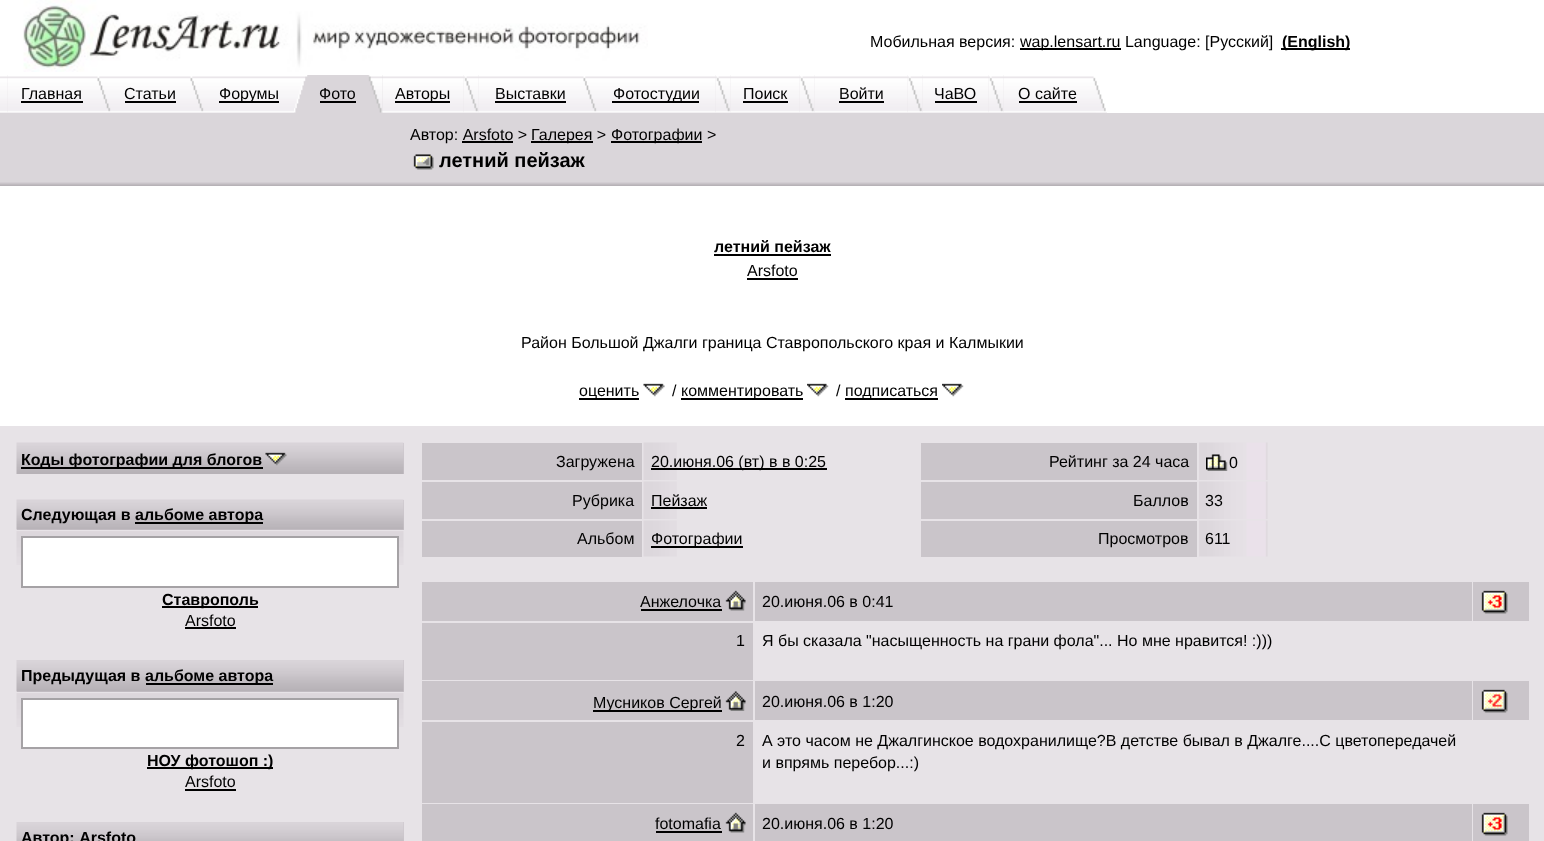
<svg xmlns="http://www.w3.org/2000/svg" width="1544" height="841">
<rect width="100%" height="100%" fill="#e7e3e7"/>
<rect width="1544" height="75" fill="#fff"/>
<image x="23" y="0" width="625" height="72" href="media/1.png"/>
<text x="870" y="47" style="font-family:Liberation Sans;font-size:16px;fill:#000">Мобильная версия:</text>
<rect x="1020" y="48" width="101" height="2" fill="#000"/>
<text x="1020" y="47" style="font-family:Liberation Sans;font-size:16px;fill:#000">wap.lensart.ru Language: [Русский]</text>
<rect x="1281" y="48" width="69" height="2" fill="#000"/>
<text x="1282" y="47" style="font-family:Liberation Sans;font-size:16px;font-weight:bold;fill:#000">(English)</text>
<image x="0" y="75" width="8" height="38" href="media/2.png"/>
<image x="96" y="75" width="15" height="38" href="media/3.png"/>
<image x="189" y="75" width="15" height="38" href="media/3.png"/>
<rect x="294" y="75" width="89" height="38" fill="#dad6da"/>
<image x="294" y="75" width="14" height="38" href="media/4.png"/>
<image x="7" y="75" width="89" height="38" href="media/5.png"/>
<text x="21" y="99" style="font-family:Liberation Sans;font-size:16px;fill:#000">Главная</text>
<rect x="21" y="101" width="62" height="2" fill="#000"/>
<image x="111" y="75" width="78" height="38" href="media/6.png"/>
<text x="124" y="99" style="font-family:Liberation Sans;font-size:16px;fill:#000">Статьи</text>
<rect x="125" y="101" width="51" height="2" fill="#000"/>
<image x="204" y="75" width="90" height="38" href="media/7.png"/>
<rect x="219" y="101" width="60" height="2" fill="#000"/>
<text x="219" y="99" style="font-family:Liberation Sans;font-size:16px;fill:#000">Форумы</text>
<rect x="307" y="75" width="1" height="2" fill="#d9d5d980"/>
<text x="319" y="99" style="font-family:Liberation Sans;font-size:16px;fill:#000">Фото</text>
<rect x="320" y="101" width="36" height="2" fill="#000"/>
<image x="368" y="75" width="15" height="38" href="media/8.png"/>
<image x="382" y="75" width="82" height="38" href="media/9.png"/>
<rect x="395" y="101" width="55" height="2" fill="#000"/>
<text x="395" y="99" style="font-family:Liberation Sans;font-size:16px;fill:#000">Авторы</text>
<image x="463" y="75" width="16" height="38" href="media/10.png"/>
<image x="478" y="75" width="104" height="38" href="media/11.png"/>
<text x="495" y="99" style="font-family:Liberation Sans;font-size:16px;fill:#000">Выставки</text>
<rect x="495" y="101" width="71" height="2" fill="#000"/>
<image x="582" y="75" width="15" height="38" href="media/3.png"/>
<image x="597" y="75" width="119" height="38" href="media/12.png"/>
<rect x="612" y="101" width="87" height="2" fill="#000"/>
<text x="613" y="99" style="font-family:Liberation Sans;font-size:16px;fill:#000">Фотостудии</text>
<image x="715" y="75" width="16" height="38" href="media/10.png"/>
<image x="730" y="75" width="70" height="38" href="media/13.png"/>
<text x="743" y="99" style="font-family:Liberation Sans;font-size:16px;fill:#000">Поиск</text>
<rect x="743" y="101" width="45" height="2" fill="#000"/>
<image x="799" y="75" width="16" height="38" href="media/10.png"/>
<image x="814" y="75" width="94" height="38" href="media/14.png"/>
<text x="839" y="99" style="font-family:Liberation Sans;font-size:16px;fill:#000">Войти</text>
<rect x="839" y="101" width="45" height="2" fill="#000"/>
<image x="907" y="75" width="16" height="38" href="media/10.png"/>
<image x="922" y="75" width="67" height="38" href="media/15.png"/>
<text x="934" y="99" style="font-family:Liberation Sans;font-size:16px;fill:#000">ЧаВО</text>
<rect x="935" y="101" width="42" height="2" fill="#000"/>
<image x="988" y="75" width="16" height="38" href="media/10.png"/>
<image x="1003" y="75" width="89" height="38" href="media/5.png"/>
<text x="1018" y="99" style="font-family:Liberation Sans;font-size:16px;fill:#000">О сайте</text>
<rect x="1019" y="101" width="58" height="2" fill="#000"/>
<image x="1092" y="75" width="15" height="38" href="media/16.png"/>
<rect x="1107" y="75" width="437" height="38" fill="#fff"/>
<rect y="113" width="1544" height="69" fill="#dad6da"/>
<text x="410" y="140" style="font-family:Liberation Sans;font-size:16px;fill:#000">Автор: Arsfoto &gt;</text>
<rect x="531" y="141" width="62" height="2" fill="#000"/>
<text x="531" y="140" style="font-family:Liberation Sans;font-size:16px;fill:#000">Галерея &gt;</text>
<rect x="611" y="141" width="91" height="2" fill="#000"/>
<text x="611" y="140" style="font-family:Liberation Sans;font-size:16px;fill:#000">Фотографии &gt;</text>
<rect x="462" y="141" width="51" height="2" fill="#000"/>
<image x="413" y="154" width="21" height="16" href="media/17.png"/>
<text x="439" y="167" style="font-family:Liberation Sans;font-size:20px;font-weight:bold;fill:#000">летний пейзаж</text>
<image x="0" y="182" width="1544" height="4" href="media/18.png"/>
<rect y="186" width="1544" height="240" fill="#fff"/>
<text x="714" y="252" style="font-family:Liberation Sans;font-size:16px;font-weight:bold;fill:#000">летний пейзаж</text>
<rect x="714" y="254" width="117" height="2" fill="#000"/>
<text x="747" y="276" style="font-family:Liberation Sans;font-size:16px;fill:#000">Arsfoto</text>
<rect x="747" y="278" width="51" height="2" fill="#000"/>
<text x="521" y="348" style="font-family:Liberation Sans;font-size:16px;fill:#000">Район Большой Джалги граница Ставропольского края и Калмыкии</text>
<rect x="579" y="398" width="60" height="2" fill="#000"/>
<text x="579" y="396" style="font-family:Liberation Sans;font-size:16px;fill:#000">оценить</text>
<image x="643" y="383" width="22" height="14" href="media/19.png"/>
<text x="672" y="396" style="font-family:Liberation Sans;font-size:16px;fill:#000">/</text>
<rect x="681" y="398" width="122" height="2" fill="#000"/>
<text x="681" y="396" style="font-family:Liberation Sans;font-size:16px;fill:#000">комментировать</text>
<image x="807" y="383" width="22" height="14" href="media/20.png"/>
<text x="836" y="396" style="font-family:Liberation Sans;font-size:16px;fill:#000">/</text>
<rect x="845" y="398" width="93" height="2" fill="#000"/>
<text x="845" y="396" style="font-family:Liberation Sans;font-size:16px;fill:#000">подписаться</text>
<image x="942" y="383" width="22" height="14" href="media/20.png"/>
<rect x="403" y="443" width="1" height="31" fill="#cac5ca"/>
<image x="16" y="442" width="388" height="32" href="media/21.png"/>
<rect x="21" y="467" width="242" height="2" fill="#000"/>
<text x="21" y="465" style="font-family:Liberation Sans;font-size:16px;font-weight:bold;fill:#000">Коды фотографии для блогов</text>
<image x="265" y="452" width="22" height="14" href="media/22.png"/>
<rect x="17" y="500" width="387" height="30" fill="#cac5ca"/>
<image x="16" y="499" width="388" height="31" href="media/23.png"/>
<text x="21" y="520" style="font-family:Liberation Sans;font-size:16px;font-weight:bold;fill:#000">Следующая в</text>
<rect x="135" y="522" width="128" height="2" fill="#000"/>
<text x="135" y="520" style="font-family:Liberation Sans;font-size:16px;font-weight:bold;fill:#000">альбоме автора</text>
<image x="16" y="531" width="388" height="34" href="media/24.png"/>
<rect x="22" y="537" width="376" height="50" fill="#fff" stroke="#a5a2a5" stroke-width="2"/>
<rect x="162" y="606" width="96" height="2" fill="#000"/>
<text x="162" y="605" style="font-family:Liberation Sans;font-size:16px;font-weight:bold;fill:#000">Ставрополь</text>
<text x="185" y="626" style="font-family:Liberation Sans;font-size:16px;fill:#000">Arsfoto</text>
<rect x="185" y="627" width="51" height="2" fill="#000"/>
<rect x="17" y="660" width="387" height="32" fill="#cac5ca"/>
<image x="16" y="660" width="388" height="32" href="media/25.png"/>
<text x="21" y="681" style="font-family:Liberation Sans;font-size:16px;font-weight:bold;fill:#000">Предыдущая в</text>
<rect x="146" y="683" width="127" height="2" fill="#000"/>
<text x="145" y="681" style="font-family:Liberation Sans;font-size:16px;font-weight:bold;fill:#000">альбоме автора</text>
<image x="16" y="693" width="388" height="34" href="media/24.png"/>
<rect x="22" y="699" width="376" height="49" fill="#fff" stroke="#a5a2a5" stroke-width="2"/>
<rect x="147" y="767" width="126" height="2" fill="#000"/>
<text x="147" y="766" style="font-family:Liberation Sans;font-size:16px;font-weight:bold;fill:#000">НОУ фотошоп :)</text>
<text x="185" y="787" style="font-family:Liberation Sans;font-size:16px;fill:#000">Arsfoto</text>
<rect x="185" y="789" width="51" height="2" fill="#000"/>
<rect x="403" y="822" width="1" height="19" fill="#cac5ca"/>
<image x="16" y="822" width="388" height="19" href="media/26.png"/>
<text x="21" y="843" style="font-family:Liberation Sans;font-size:16px;font-weight:bold;fill:#000">Автор: Arsfoto</text>
<rect x="422" y="443" width="220" height="37" fill="#cac5ca"/>
<text x="556" y="467" style="font-family:Liberation Sans;font-size:16px;fill:#000">Загружена</text>
<image x="643" y="442" width="34" height="38" href="media/27.png"/>
<rect x="651" y="468" width="176" height="2" fill="#000"/>
<text x="651" y="467" style="font-family:Liberation Sans;font-size:16px;fill:#000">20.июня.06 (вт) в в 0:25</text>
<rect x="921" y="443" width="276" height="37" fill="#cac5ca"/>
<text x="1049" y="467" style="font-family:Liberation Sans;font-size:16px;fill:#000">Рейтинг за 24 часа</text>
<image x="1199" y="442" width="69" height="38" href="media/28.png"/>
<image x="1206" y="454" width="22" height="17" href="media/29.png"/>
<text x="1229" y="468" style="font-family:Liberation Sans;font-size:16px;fill:#000">0</text>
<rect x="422" y="482" width="220" height="37" fill="#cac5ca"/>
<text x="572" y="506" style="font-family:Liberation Sans;font-size:16px;fill:#000">Рубрика</text>
<image x="643" y="481" width="34" height="38" href="media/27.png"/>
<text x="651" y="506" style="font-family:Liberation Sans;font-size:16px;fill:#000">Пейзаж</text>
<rect x="651" y="507" width="56" height="2" fill="#000"/>
<rect x="921" y="482" width="276" height="37" fill="#cac5ca"/>
<text x="1133" y="506" style="font-family:Liberation Sans;font-size:16px;fill:#000">Баллов</text>
<image x="1199" y="481" width="69" height="38" href="media/30.png"/>
<text x="1205" y="506" style="font-family:Liberation Sans;font-size:16px;fill:#000">33</text>
<rect x="422" y="521" width="220" height="36" fill="#cac5ca"/>
<text x="577" y="544" style="font-family:Liberation Sans;font-size:16px;fill:#000">Альбом</text>
<image x="643" y="520" width="34" height="37" href="media/31.png"/>
<rect x="651" y="546" width="92" height="2" fill="#000"/>
<text x="651" y="544" style="font-family:Liberation Sans;font-size:16px;fill:#000">Фотографии</text>
<rect x="921" y="521" width="276" height="36" fill="#cac5ca"/>
<text x="1098" y="544" style="font-family:Liberation Sans;font-size:16px;fill:#000">Просмотров</text>
<image x="1199" y="520" width="69" height="37" href="media/32.png"/>
<text x="1205" y="544" style="font-family:Liberation Sans;font-size:16px;fill:#000">611</text>
<rect x="422" y="582" width="331" height="39" fill="#cac5ca"/>
<text x="640" y="607" style="font-family:Liberation Sans;font-size:16px;fill:#000">Анжелочка</text>
<rect x="641" y="609" width="81" height="2" fill="#000"/>
<image x="725" y="590" width="21" height="21" href="media/33.png"/>
<rect x="755" y="582" width="717" height="39" fill="#cac5ca"/>
<text x="762" y="607" style="font-family:Liberation Sans;font-size:16px;fill:#000">20.июня.06 в 0:41</text>
<rect x="1473" y="582" width="56" height="39" fill="#cac5ca"/>
<image x="1481" y="590" width="27" height="24" href="media/34.png"/>
<rect x="422" y="623" width="331" height="57" fill="#cac5ca"/>
<text x="736" y="646" style="font-family:Liberation Sans;font-size:16px;fill:#000">1</text>
<text x="762" y="646" style="font-family:Liberation Sans;font-size:16px;fill:#000">Я бы сказала "насыщенность на грани фола"... Но мне нравится! :)))</text>
<rect x="422" y="681" width="331" height="39" fill="#cac5ca"/>
<rect x="593" y="710" width="129" height="2" fill="#000"/>
<text x="593" y="708" style="font-family:Liberation Sans;font-size:16px;fill:#000">Мусников Сергей</text>
<image x="725" y="691" width="21" height="20" href="media/35.png"/>
<rect x="755" y="681" width="717" height="39" fill="#cac5ca"/>
<text x="762" y="707" style="font-family:Liberation Sans;font-size:16px;fill:#000">20.июня.06 в 1:20</text>
<rect x="1473" y="681" width="56" height="39" fill="#cac5ca"/>
<image x="1481" y="689" width="27" height="24" href="media/36.png"/>
<rect x="422" y="722" width="331" height="81" fill="#cac5ca"/>
<text x="736" y="746" style="font-family:Liberation Sans;font-size:16px;fill:#000">2</text>
<text x="762" y="746" style="font-family:Liberation Sans;font-size:16px;fill:#000">А это часом не Джалгинское водохранилище?В детстве бывал в Джалге....С цветопередачей</text>
<text x="762" y="768" style="font-family:Liberation Sans;font-size:16px;fill:#000">и впрямь перебор...:)</text>
<rect x="422" y="804" width="331" height="37" fill="#cac5ca"/>
<text x="655" y="829" style="font-family:Liberation Sans;font-size:16px;fill:#000">fotomafia</text>
<rect x="656" y="831" width="66" height="2" fill="#000"/>
<image x="725" y="812" width="21" height="21" href="media/33.png"/>
<rect x="755" y="804" width="717" height="37" fill="#cac5ca"/>
<text x="762" y="829" style="font-family:Liberation Sans;font-size:16px;fill:#000">20.июня.06 в 1:20</text>
<rect x="1473" y="804" width="56" height="37" fill="#cac5ca"/>
<image x="1481" y="812" width="27" height="24" href="media/34.png"/>
</svg>
